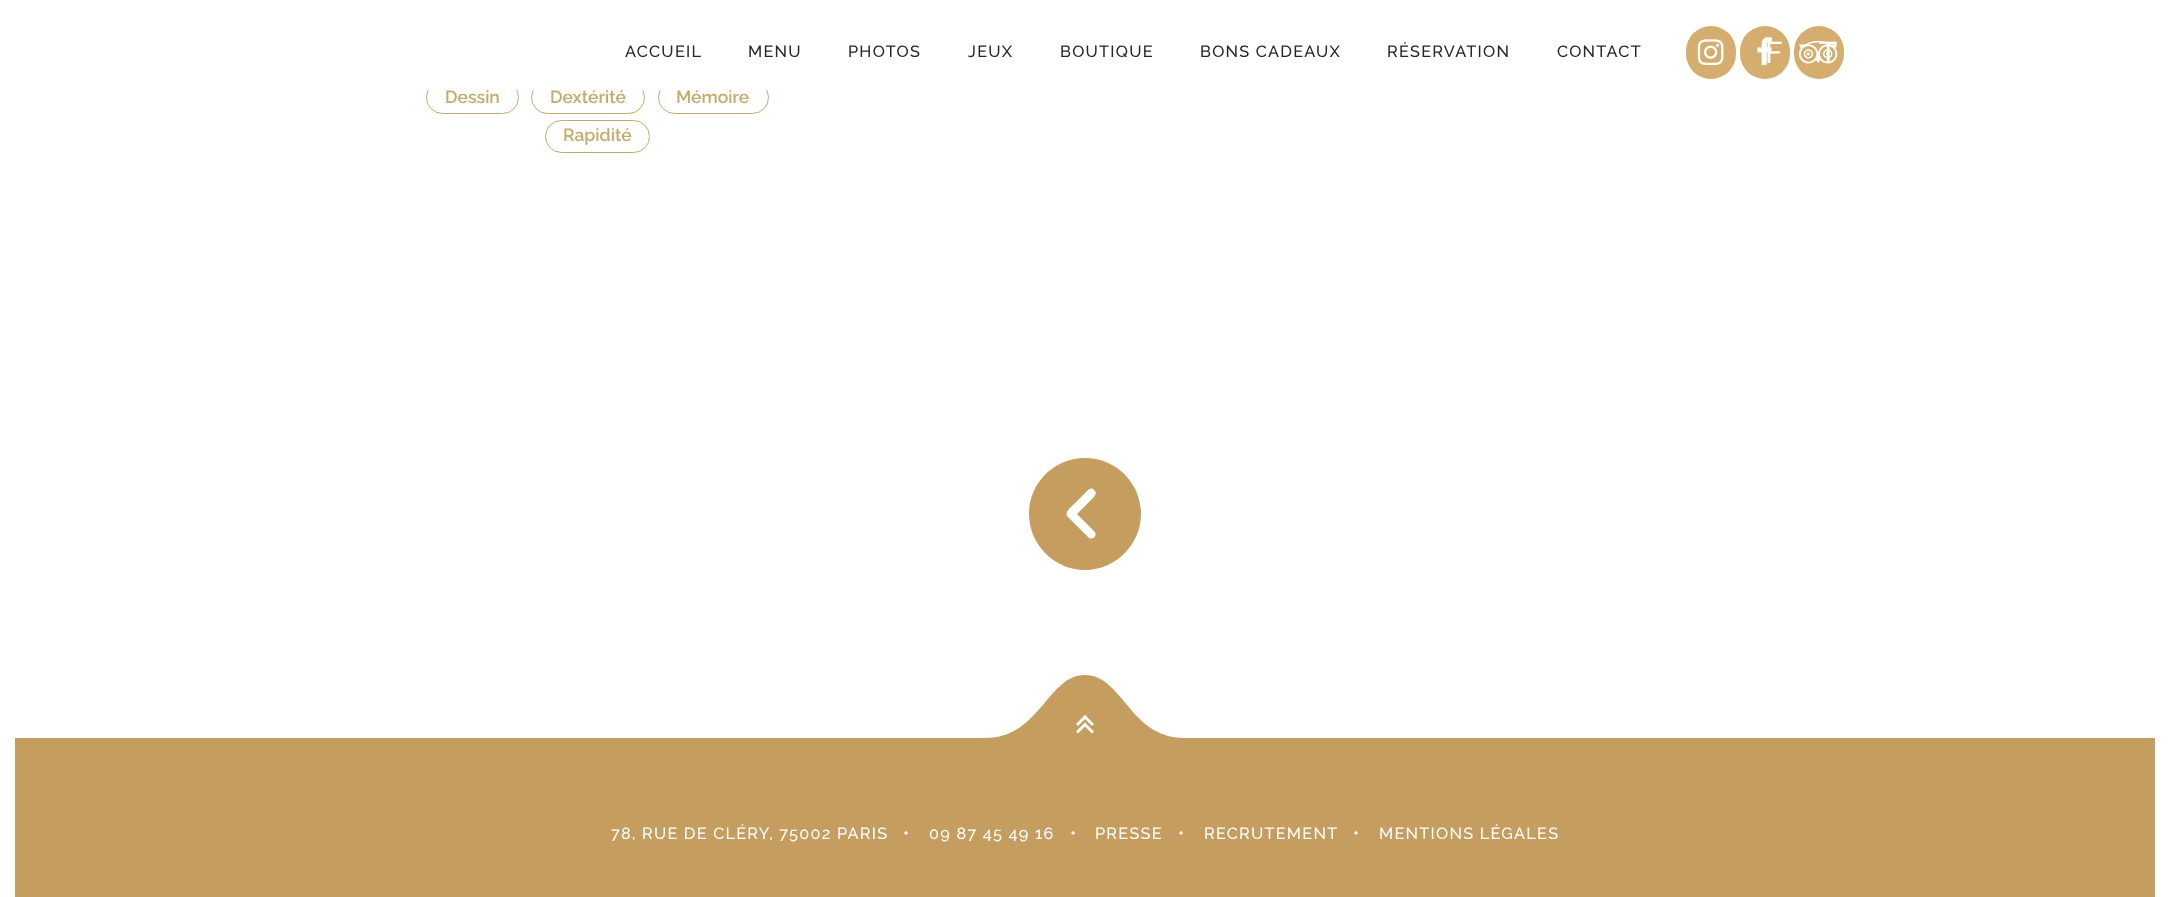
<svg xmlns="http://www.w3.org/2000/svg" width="2169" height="897">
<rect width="100%" height="100%" fill="#fff"/>
<rect x="426.5" y="81.5" width="92" height="32" rx="16" fill="none" stroke="#c3ab6d"/>
<rect x="531.5" y="81.5" width="113" height="32" rx="16" fill="none" stroke="#c3ab6d"/>
<rect x="658.5" y="81.5" width="110" height="32" rx="16" fill="none" stroke="#c3ab6d"/>
<rect x="427" y="81" width="341" height="9" fill="#fff"/>
<text x="625" y="57" style="font-family:Raleway;font-size:16.25px;font-weight:500;letter-spacing:1.25px;fill:#252525">ACCUEIL</text>
<text x="748" y="57" style="font-family:Raleway;font-size:16.25px;font-weight:500;letter-spacing:1.25px;fill:#252525">MENU</text>
<text x="848" y="57" style="font-family:Raleway;font-size:16.25px;font-weight:500;letter-spacing:1.25px;fill:#252525">PHOTOS</text>
<text x="968" y="57" style="font-family:Raleway;font-size:16.25px;font-weight:500;letter-spacing:1.25px;fill:#252525">JEUX</text>
<text x="1060" y="57" style="font-family:Raleway;font-size:16.25px;font-weight:500;letter-spacing:1.25px;fill:#252525">BOUTIQUE</text>
<text x="1200" y="57" style="font-family:Raleway;font-size:16.25px;font-weight:500;letter-spacing:1.25px;fill:#252525">BONS CADEAUX</text>
<text x="1387" y="57" style="font-family:Raleway;font-size:16.25px;font-weight:500;letter-spacing:1.25px;fill:#252525">RÉSERVATION</text>
<text x="1557" y="57" style="font-family:Raleway;font-size:16.25px;font-weight:500;letter-spacing:1.25px;fill:#252525">CONTACT</text>
<rect x="1686" y="26" width="50" height="53" rx="25" fill="#d5ad6f"/>
<image x="1697" y="39" width="27" height="26" href="media/1.png"/>
<rect x="1740" y="26" width="50" height="53" rx="25" fill="#d5ad6f"/>
<image x="1757" y="37" width="15" height="29" href="media/2.png"/>
<text x="1765" y="63" style="font-family:Raleway;font-size:30px;font-weight:500;letter-spacing:1.25px;fill:#fff">F</text>
<rect x="1794" y="26" width="50" height="53" rx="25" fill="#d5ad6f"/>
<image x="1798" y="40" width="40" height="24" href="media/3.png"/>
<text x="1819" y="63" style="font-family:Raleway;font-size:30px;font-weight:500;letter-spacing:1.25px;fill:#fff">T</text>
<text x="445" y="103" style="font-family:Raleway;font-size:17.5px;font-weight:600;fill:#c3ab6d">Dessin</text>
<text x="550" y="103" style="font-family:Raleway;font-size:17.5px;font-weight:600;fill:#c3ab6d">Dextérité</text>
<text x="676" y="103" style="font-family:Raleway;font-size:17.5px;font-weight:600;fill:#c3ab6d">Mémoire</text>
<rect x="545.5" y="120.5" width="104" height="32" rx="16" fill="none" stroke="#c3ab6d"/>
<text x="563" y="141" style="font-family:Raleway;font-size:17.5px;font-weight:600;fill:#c3ab6d">Rapidité</text>
<path d="M1085 570c31 0 56-26 56-56c0-31-25-56-56-56c-31 0-56 25-56 56c0 30 25 56 56 56zm9-39c4 4 0 9-5 7l-21-21l3-3l-3 3c-4-4 1-8 3-10l14-14c2-2 6-7 9-3c4 3 0 7-2 9l-15 15z" fill="#c59d5f"/>
<rect x="15" y="738" width="2140" height="159" fill="#c59d5f"/>
<path d="M1085 751l53-6c26-4 51-7 46-7c-27 0-43-16-56-32c-13-15-24-31-43-31c-19 0-30 16-43 31c-14 16-29 32-56 32c-5 0-8 0 4 2z" fill="#c59d5f"/>
<path d="M1085 715l9 9l-2 2l-9-9z" fill="#fff"/>
<path d="M1085 715l2 2l-9 9l-2-2z" fill="#fff"/>
<path d="M1085 722.5l9 9l-2 2l-9-9z" fill="#fff"/>
<path d="M1085 722.5l2 2l-9 9l-2-2z" fill="#fff"/>
<text x="611" y="839" style="font-family:Raleway;font-size:16.25px;font-weight:500;letter-spacing:1.25px;fill:#fff">78, RUE DE CLÉRY, 75002 PARIS</text>
<text x="903" y="839" style="font-family:Raleway;font-size:17.5px;fill:#fff">•</text>
<text x="929" y="839" style="font-family:Raleway;font-size:16.25px;font-weight:500;letter-spacing:1.25px;fill:#fff">09 87 45 49 16</text>
<text x="1070" y="839" style="font-family:Raleway;font-size:17.5px;fill:#fff">•</text>
<text x="1095" y="839" style="font-family:Raleway;font-size:16.25px;font-weight:500;letter-spacing:1.25px;fill:#fff">PRESSE</text>
<text x="1178" y="839" style="font-family:Raleway;font-size:17.5px;fill:#fff">•</text>
<text x="1204" y="839" style="font-family:Raleway;font-size:16.25px;font-weight:500;letter-spacing:1.25px;fill:#fff">RECRUTEMENT</text>
<text x="1353" y="839" style="font-family:Raleway;font-size:17.5px;fill:#fff">•</text>
<text x="1379" y="839" style="font-family:Raleway;font-size:16.25px;font-weight:500;letter-spacing:1.25px;fill:#fff">MENTIONS LÉGALES</text>
</svg>
